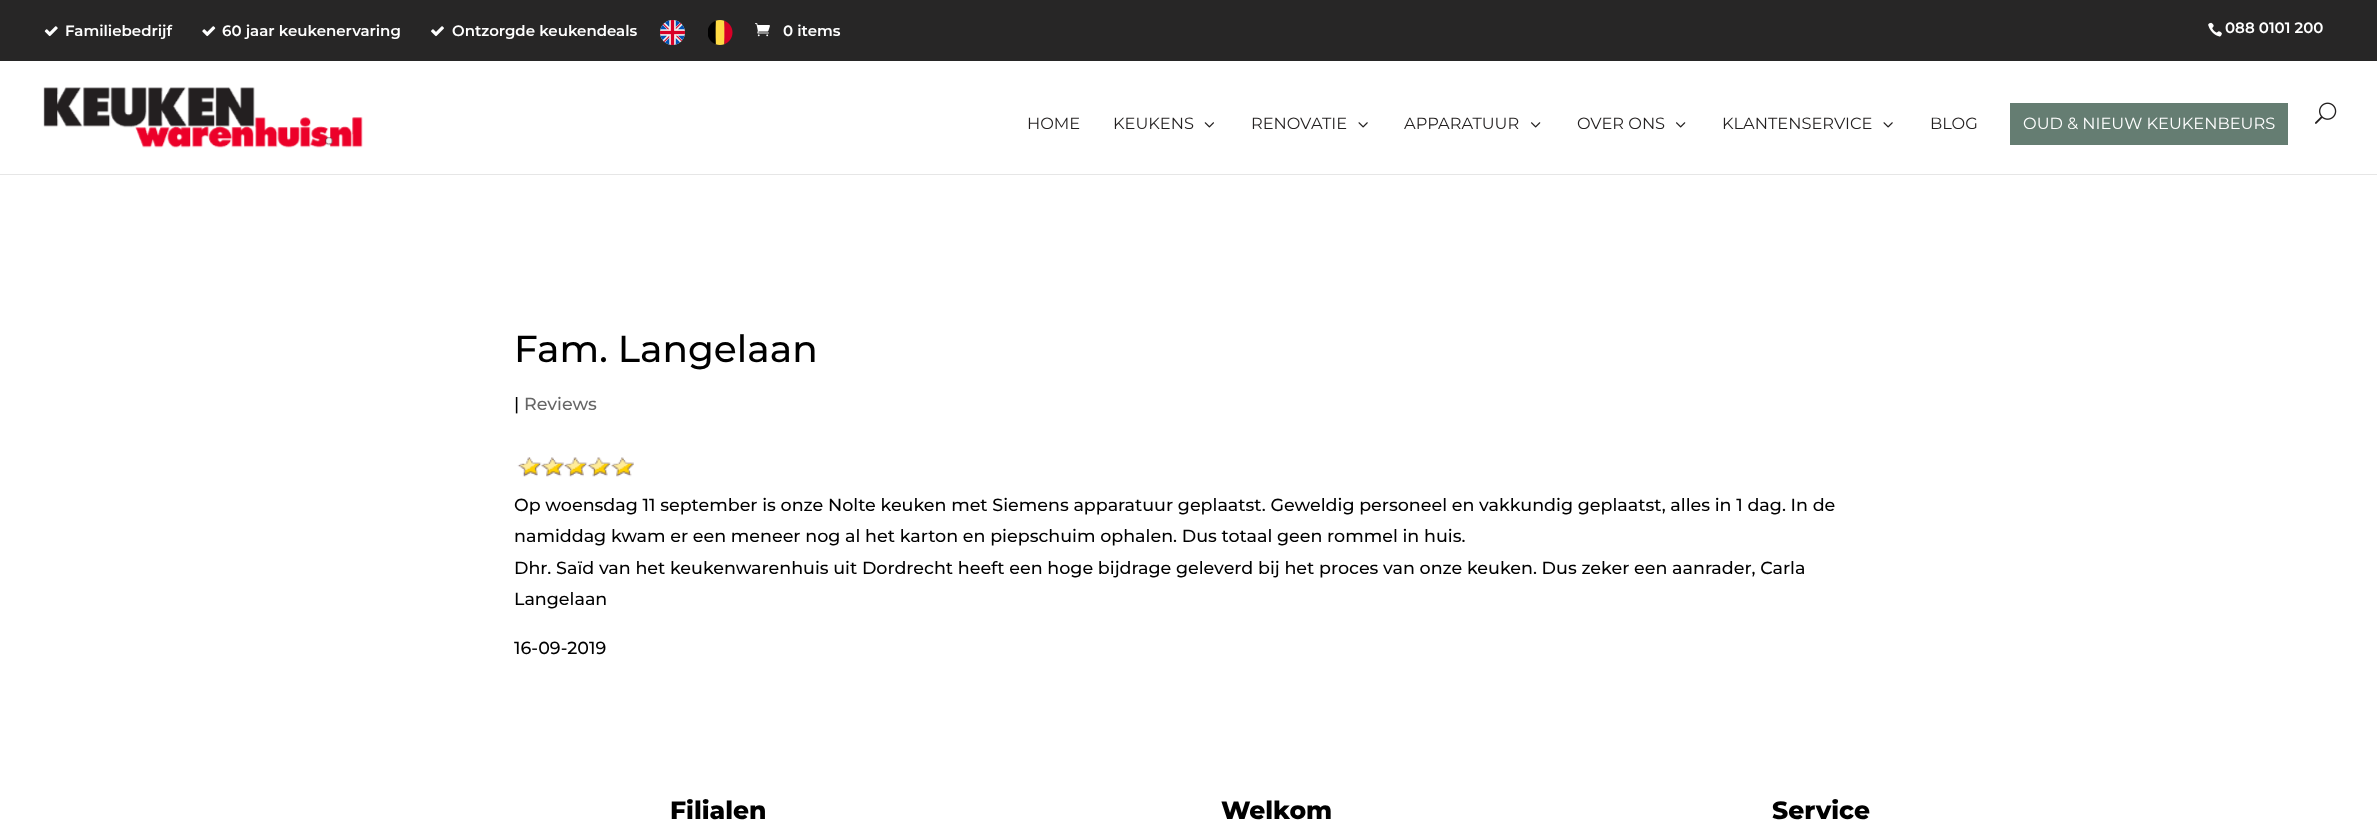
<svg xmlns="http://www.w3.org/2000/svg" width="2377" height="839">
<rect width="100%" height="100%" fill="#fff"/>
<rect width="2377" height="61" fill="#272626"/>
<image x="44" y="26" width="14" height="11" href="media/1.png"/>
<text x="65" y="36" style="font-family:Montserrat;font-size:15px;font-weight:600;fill:#fff">Familiebedrijf</text>
<image x="202" y="26" width="14" height="11" href="media/2.png"/>
<text x="222" y="36" style="font-family:Montserrat;font-size:15px;font-weight:600;fill:#fff">60 jaar keukenervaring</text>
<image x="431" y="26" width="13" height="11" href="media/3.png"/>
<text x="452" y="36" style="font-family:Montserrat;font-size:15px;font-weight:600;fill:#fff">Ontzorgde keukendeals</text>
<image x="660" y="20" width="25" height="25" href="media/4.png"/>
<image x="708" y="20" width="25" height="25" href="media/5.png"/>
<image x="755" y="23" width="15" height="14" href="media/6.png"/>
<text x="783" y="36" style="font-family:Montserrat;font-size:15px;font-weight:600;fill:#fff">0 items</text>
<image x="2208" y="22" width="14" height="15" href="media/7.png"/>
<text x="2225" y="33" style="font-family:Montserrat;font-size:15px;font-weight:600;fill:#fff">088 0101 200</text>
<path d="M0 174v1h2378v-112v111z" fill="#e6e6e6"/>
<image x="43" y="87" width="320" height="61" href="media/8.png"/>
<text x="1027" y="129" style="font-family:Montserrat;font-size:16.25px;fill:#221f1f">HOME</text>
<text x="1113" y="129" style="font-family:Montserrat;font-size:16.25px;fill:#221f1f">KEUKENS</text>
<image x="1204" y="122" width="10" height="6" href="media/9.png"/>
<text x="1251" y="129" style="font-family:Montserrat;font-size:16.25px;fill:#221f1f">RENOVATIE</text>
<image x="1358" y="122" width="10" height="6" href="media/10.png"/>
<text x="1404" y="129" style="font-family:Montserrat;font-size:16.25px;fill:#221f1f">APPARATUUR</text>
<image x="1531" y="122" width="10" height="6" href="media/11.png"/>
<text x="1577" y="129" style="font-family:Montserrat;font-size:16.25px;fill:#221f1f">OVER ONS</text>
<image x="1676" y="122" width="10" height="6" href="media/11.png"/>
<text x="1722" y="129" style="font-family:Montserrat;font-size:16.25px;fill:#221f1f">KLANTENSERVICE</text>
<image x="1883" y="122" width="10" height="6" href="media/10.png"/>
<text x="1930" y="129" style="font-family:Montserrat;font-size:16.25px;fill:#221f1f">BLOG</text>
<rect x="2010" y="103" width="278" height="42" fill="#657d72"/>
<text x="2023" y="129" style="font-family:Montserrat;font-size:16.25px;fill:#fff">OUD &amp; NIEUW KEUKENBEURS</text>
<image x="2315" y="102" width="22" height="22" href="media/12.png"/>
<text x="514" y="362" style="font-family:Montserrat;font-size:37.5px;font-weight:500;fill:#000">Fam. Langelaan</text>
<text x="514" y="410" style="font-family:Montserrat;font-size:17.5px;font-weight:500;fill:#000">|</text>
<text x="524" y="410" style="font-family:Montserrat;font-size:17.5px;font-weight:500;fill:#666">Reviews</text>
<image x="517" y="457" width="117" height="20" href="media/13.png"/>
<text x="514" y="511" style="font-family:Montserrat;font-size:17.5px;font-weight:500;fill:#000">Op woensdag 11 september is onze Nolte keuken met Siemens apparatuur geplaatst. Geweldig personeel en vakkundig geplaatst, alles in 1 dag. In de</text>
<text x="514" y="542" style="font-family:Montserrat;font-size:17.5px;font-weight:500;fill:#000">namiddag kwam er een meneer nog al het karton en piepschuim ophalen. Dus totaal geen rommel in huis.</text>
<text x="514" y="574" style="font-family:Montserrat;font-size:17.5px;font-weight:500;fill:#000">Dhr. Saïd van het keukenwarenhuis uit Dordrecht heeft een hoge bijdrage geleverd bij het proces van onze keuken. Dus zeker een aanrader, Carla</text>
<text x="514" y="605" style="font-family:Montserrat;font-size:17.5px;font-weight:500;fill:#000">Langelaan</text>
<text x="514" y="654" style="font-family:Montserrat;font-size:17.5px;font-weight:500;fill:#000">16-09-2019</text>
<text x="670" y="819" style="font-family:Montserrat;font-size:25px;font-weight:800;fill:#000">Filialen</text>
<text x="1221" y="819" style="font-family:Montserrat;font-size:25px;font-weight:800;fill:#000">Welkom</text>
<text x="1772" y="819" style="font-family:Montserrat;font-size:25px;font-weight:800;fill:#000">Service</text>
</svg>
